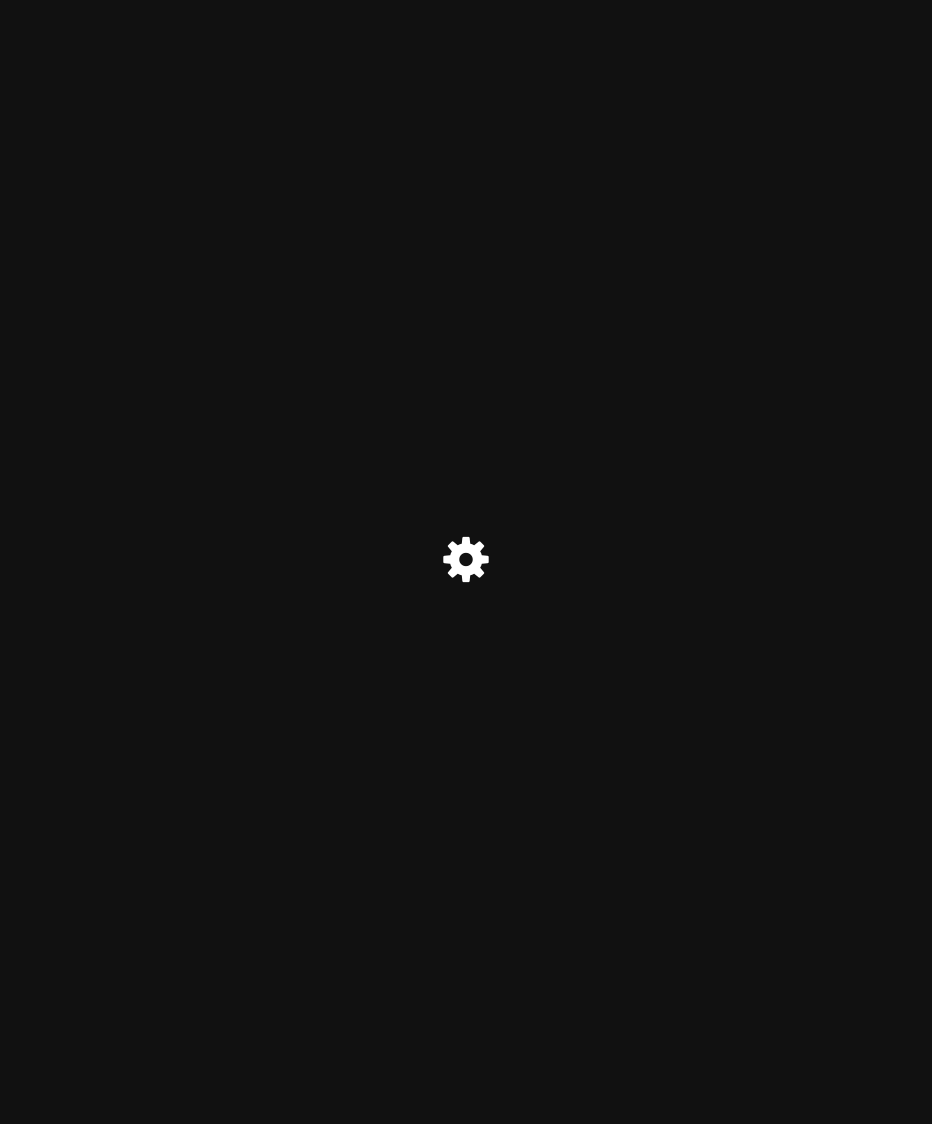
<svg xmlns="http://www.w3.org/2000/svg" width="932" height="1124">
<rect width="100%" height="100%" fill="#111"/>
<image x="443" y="536" width="46" height="47" href="media/1.png"/>
</svg>
